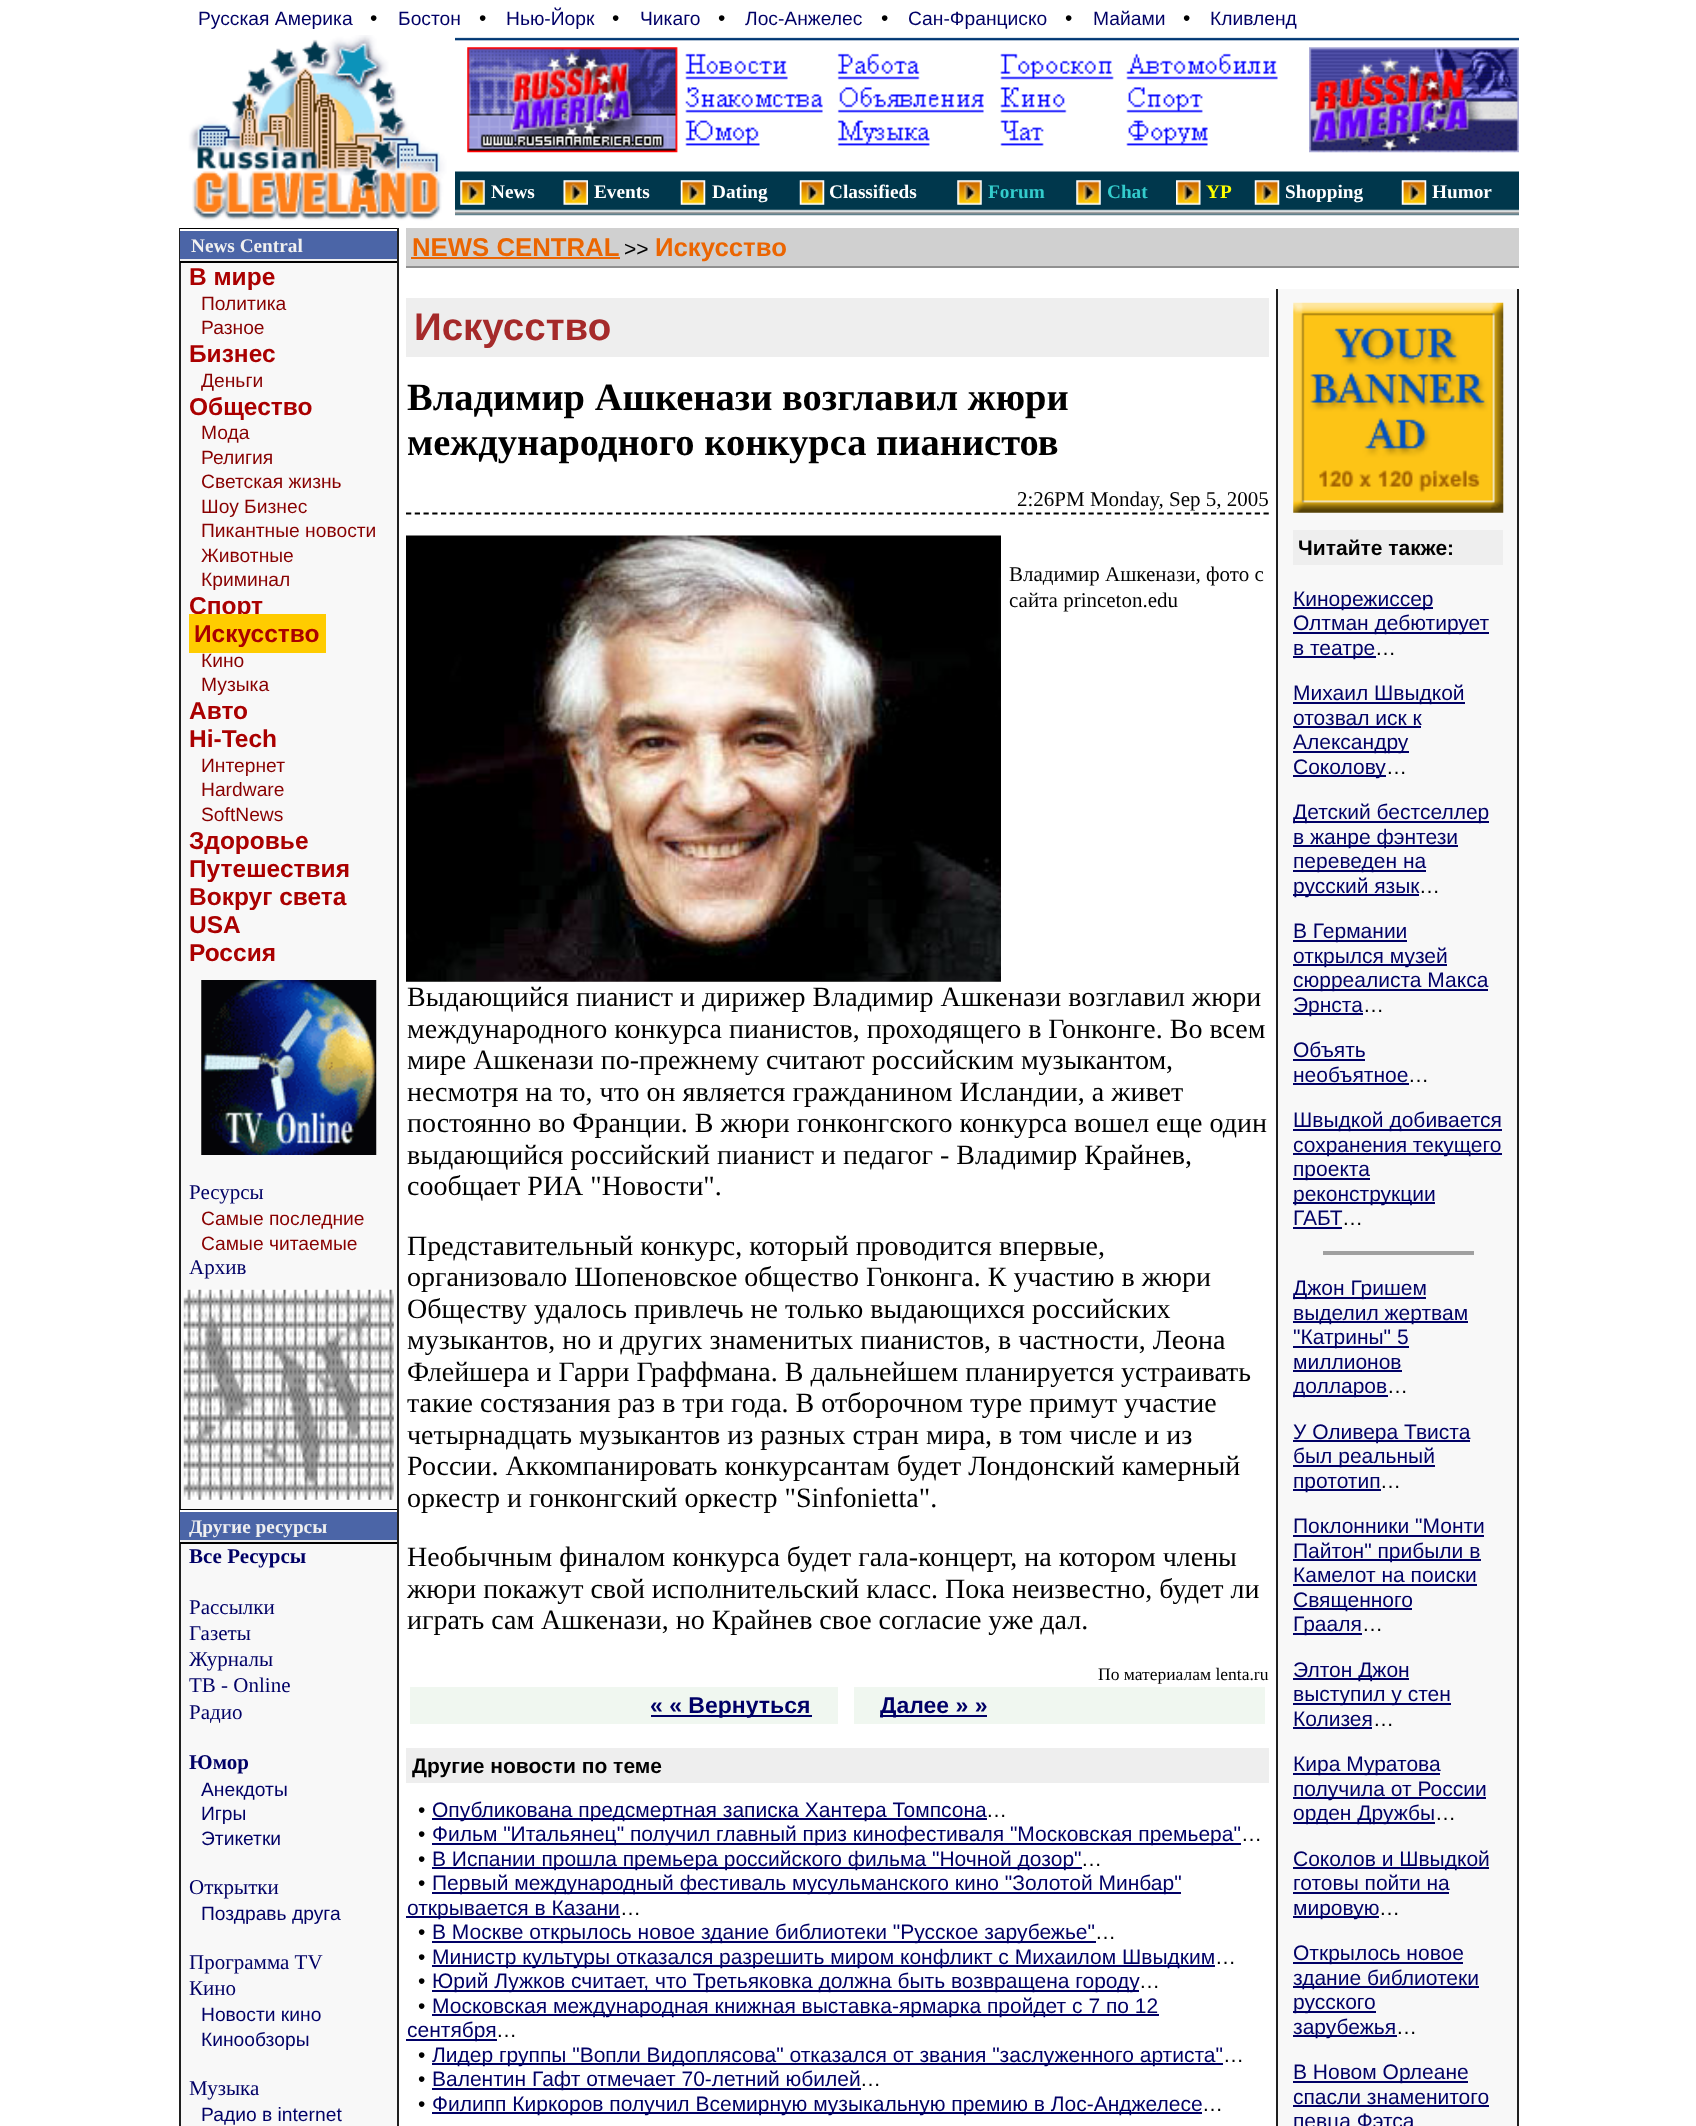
<svg xmlns="http://www.w3.org/2000/svg" width="1696" height="2126">
<rect width="100%" height="100%" fill="#fff"/>
<text x="198" y="25" style="font-family:Liberation Sans;font-size:19.25px;fill:#006">Русская Америка</text>
<text x="370" y="25" style="font-family:Liberation Sans;font-size:21px;fill:#000">•</text>
<text x="398" y="25" style="font-family:Liberation Sans;font-size:19.25px;fill:#006">Бостон</text>
<text x="479" y="25" style="font-family:Liberation Sans;font-size:21px;fill:#000">•</text>
<text x="506" y="25" style="font-family:Liberation Sans;font-size:19.25px;fill:#006">Нью-Йорк</text>
<text x="612" y="25" style="font-family:Liberation Sans;font-size:21px;fill:#000">•</text>
<text x="640" y="25" style="font-family:Liberation Sans;font-size:19.25px;fill:#006">Чикаго</text>
<text x="718" y="25" style="font-family:Liberation Sans;font-size:21px;fill:#000">•</text>
<text x="745" y="25" style="font-family:Liberation Sans;font-size:19.25px;fill:#006">Лос-Анжелес</text>
<text x="881" y="25" style="font-family:Liberation Sans;font-size:21px;fill:#000">•</text>
<text x="908" y="25" style="font-family:Liberation Sans;font-size:19.25px;fill:#006">Сан-Франциcко</text>
<text x="1065" y="25" style="font-family:Liberation Sans;font-size:21px;fill:#000">•</text>
<text x="1093" y="25" style="font-family:Liberation Sans;font-size:19.25px;fill:#006">Майами</text>
<text x="1183" y="25" style="font-family:Liberation Sans;font-size:21px;fill:#000">•</text>
<text x="1210" y="25" style="font-family:Liberation Sans;font-size:19.25px;fill:#006">Кливленд</text>
<image x="179" y="35" width="274" height="189" href="media/1.png"/>
<image x="455" y="37" width="1064" height="4" href="media/2.png"/>
<image x="467" y="47" width="811" height="106" href="media/3.png"/>
<image x="1309" y="47" width="210" height="106" href="media/4.png"/>
<image x="455" y="171" width="1064" height="45" href="media/5.png"/>
<image x="460" y="180" width="25" height="25" href="media/6.png"/>
<text x="491" y="198" style="font-family:Liberation Serif;font-size:19.25px;font-weight:bold;fill:#fff">News</text>
<image x="563" y="180" width="25" height="25" href="media/7.png"/>
<text x="594" y="198" style="font-family:Liberation Serif;font-size:19.25px;font-weight:bold;fill:#fff">Events</text>
<image x="680" y="180" width="26" height="25" href="media/8.png"/>
<text x="712" y="198" style="font-family:Liberation Serif;font-size:19.25px;font-weight:bold;fill:#fff">Dating</text>
<image x="799" y="180" width="26" height="25" href="media/8.png"/>
<text x="829" y="198" style="font-family:Liberation Serif;font-size:19.25px;font-weight:bold;fill:#fff">Classifieds</text>
<image x="957" y="180" width="25" height="25" href="media/6.png"/>
<text x="988" y="198" style="font-family:Liberation Serif;font-size:19.25px;font-weight:bold;fill:#3cc">Forum</text>
<image x="1076" y="180" width="25" height="25" href="media/6.png"/>
<text x="1107" y="198" style="font-family:Liberation Serif;font-size:19.25px;font-weight:bold;fill:#3cc">Chat</text>
<image x="1176" y="180" width="25" height="25" href="media/9.png"/>
<text x="1206" y="198" style="font-family:Liberation Serif;font-size:19.25px;font-weight:bold;fill:#ff0">YP</text>
<image x="1254" y="180" width="26" height="25" href="media/8.png"/>
<text x="1285" y="198" style="font-family:Liberation Serif;font-size:19.25px;font-weight:bold;fill:#fff">Shopping</text>
<image x="1401" y="180" width="26" height="25" href="media/10.png"/>
<text x="1432" y="198" style="font-family:Liberation Serif;font-size:19.25px;font-weight:bold;fill:#fff">Humor</text>
<rect x="181" y="263" width="216" height="1863" fill="#f8f8f8"/>
<rect x="397" y="228" width="2" height="1898" fill="#202020"/>
<rect x="179" y="228" width="2" height="1898" fill="#202020"/>
<rect x="180" y="228" width="217" height="1" fill="#000"/>
<rect x="180" y="229" width="1" height="2" fill="#fff"/>
<rect x="180" y="231" width="217" height="28" fill="#4b65a7"/>
<text x="191" y="252" style="font-family:Liberation Serif;font-size:19.25px;font-weight:bold;fill:#f0f0f0">News Central</text>
<rect x="180" y="259" width="217" height="2" fill="#f0f0f0"/>
<rect x="180" y="261" width="217" height="2" fill="#000"/>
<text x="189" y="285" style="font-family:Liberation Sans;font-size:24.5px;font-weight:bold;fill:#a00">В мире</text>
<text x="201" y="310" style="font-family:Liberation Sans;font-size:19.25px;fill:#800">Политика</text>
<text x="201" y="334" style="font-family:Liberation Sans;font-size:19.25px;fill:#800">Разное</text>
<text x="189" y="362" style="font-family:Liberation Sans;font-size:24.5px;font-weight:bold;fill:#a00">Бизнес</text>
<text x="201" y="387" style="font-family:Liberation Sans;font-size:19.25px;fill:#800">Деньги</text>
<text x="189" y="415" style="font-family:Liberation Sans;font-size:24.5px;font-weight:bold;fill:#a00">Общество</text>
<text x="201" y="439" style="font-family:Liberation Sans;font-size:19.25px;fill:#800">Мода</text>
<text x="201" y="464" style="font-family:Liberation Sans;font-size:19.25px;fill:#800">Религия</text>
<text x="201" y="488" style="font-family:Liberation Sans;font-size:19.25px;fill:#800">Светская жизнь</text>
<text x="201" y="513" style="font-family:Liberation Sans;font-size:19.25px;fill:#800">Шоу Бизнес</text>
<text x="201" y="537" style="font-family:Liberation Sans;font-size:19.25px;fill:#800">Пикантные новости</text>
<text x="201" y="562" style="font-family:Liberation Sans;font-size:19.25px;fill:#800">Животные</text>
<text x="201" y="586" style="font-family:Liberation Sans;font-size:19.25px;fill:#800">Криминал</text>
<text x="189" y="614" style="font-family:Liberation Sans;font-size:24.5px;font-weight:bold;fill:#a00">Спорт</text>
<rect x="189" y="614" width="137" height="39" fill="#fc0"/>
<text x="194" y="642" style="font-family:Liberation Sans;font-size:24.5px;font-weight:bold;fill:#a00">Искусство</text>
<text x="201" y="667" style="font-family:Liberation Sans;font-size:19.25px;fill:#800">Кино</text>
<text x="201" y="691" style="font-family:Liberation Sans;font-size:19.25px;fill:#800">Музыка</text>
<text x="189" y="719" style="font-family:Liberation Sans;font-size:24.5px;font-weight:bold;fill:#a00">Авто</text>
<text x="189" y="747" style="font-family:Liberation Sans;font-size:24.5px;font-weight:bold;fill:#a00">Hi-Tech</text>
<text x="201" y="772" style="font-family:Liberation Sans;font-size:19.25px;fill:#800">Интернет</text>
<text x="201" y="796" style="font-family:Liberation Sans;font-size:19.25px;fill:#800">Hardware</text>
<text x="201" y="821" style="font-family:Liberation Sans;font-size:19.25px;fill:#800">SoftNews</text>
<text x="189" y="849" style="font-family:Liberation Sans;font-size:24.5px;font-weight:bold;fill:#a00">Здоровье</text>
<text x="189" y="877" style="font-family:Liberation Sans;font-size:24.5px;font-weight:bold;fill:#a00">Путешествия</text>
<text x="189" y="905" style="font-family:Liberation Sans;font-size:24.5px;font-weight:bold;fill:#a00">Вокруг света</text>
<text x="189" y="933" style="font-family:Liberation Sans;font-size:24.5px;font-weight:bold;fill:#a00">USA</text>
<text x="189" y="961" style="font-family:Liberation Sans;font-size:24.5px;font-weight:bold;fill:#a00">Россия</text>
<image x="201" y="980" width="176" height="175" href="media/11.png"/>
<text x="189" y="1199" style="font-family:Liberation Serif;font-size:21px;fill:#006">Ресурсы</text>
<text x="201" y="1225" style="font-family:Liberation Sans;font-size:19.25px;fill:#800">Самые последние</text>
<text x="201" y="1250" style="font-family:Liberation Sans;font-size:19.25px;fill:#800">Самые читаемые</text>
<text x="189" y="1274" style="font-family:Liberation Serif;font-size:21px;fill:#006">Архив</text>
<image x="183" y="1289" width="211" height="211" href="media/12.png"/>
<rect x="180" y="1509" width="217" height="1" fill="#000"/>
<rect x="180" y="1510" width="217" height="2" fill="#fff"/>
<rect x="180" y="1512" width="217" height="28" fill="#4b65a7"/>
<text x="189" y="1533" style="font-family:Liberation Serif;font-size:19.25px;font-weight:bold;fill:#f0f0f0">Другие ресурсы</text>
<rect x="180" y="1540" width="217" height="2" fill="#f0f0f0"/>
<rect x="180" y="1542" width="217" height="2" fill="#000"/>
<text x="189" y="1563" style="font-family:Liberation Serif;font-size:21px;font-weight:bold;fill:#006">Все Ресурсы</text>
<text x="189" y="1614" style="font-family:Liberation Serif;font-size:21px;fill:#006">Рассылки</text>
<text x="189" y="1640" style="font-family:Liberation Serif;font-size:21px;fill:#006">Газеты</text>
<text x="189" y="1666" style="font-family:Liberation Serif;font-size:21px;fill:#006">Журналы</text>
<text x="189" y="1692" style="font-family:Liberation Serif;font-size:21px;fill:#006">ТВ - Online</text>
<text x="189" y="1719" style="font-family:Liberation Serif;font-size:21px;fill:#006">Радио</text>
<text x="189" y="1769" style="font-family:Liberation Serif;font-size:21px;font-weight:bold;fill:#006">Юмор</text>
<text x="201" y="1796" style="font-family:Liberation Sans;font-size:19.25px;fill:#006">Анекдоты</text>
<text x="201" y="1820" style="font-family:Liberation Sans;font-size:19.25px;fill:#006">Игры</text>
<text x="201" y="1845" style="font-family:Liberation Sans;font-size:19.25px;fill:#006">Этикетки</text>
<text x="189" y="1894" style="font-family:Liberation Serif;font-size:21px;fill:#006">Открытки</text>
<text x="201" y="1920" style="font-family:Liberation Sans;font-size:19.25px;fill:#006">Поздравь друга</text>
<text x="189" y="1969" style="font-family:Liberation Serif;font-size:21px;fill:#006">Программа TV</text>
<text x="189" y="1995" style="font-family:Liberation Serif;font-size:21px;fill:#006">Кино</text>
<text x="201" y="2021" style="font-family:Liberation Sans;font-size:19.25px;fill:#006">Новости кино</text>
<text x="201" y="2046" style="font-family:Liberation Sans;font-size:19.25px;fill:#006">Кинообзоры</text>
<text x="189" y="2095" style="font-family:Liberation Serif;font-size:21px;fill:#006">Музыка</text>
<text x="201" y="2121" style="font-family:Liberation Sans;font-size:19.25px;fill:#006">Радио в internet</text>
<rect x="406" y="266" width="1113" height="2" fill="#909090"/>
<rect x="406" y="228" width="1113" height="38" fill="#d0d0d0"/>
<text x="412" y="256" style="font-family:Liberation Sans;font-size:25.75px;font-weight:bold;fill:#eb6501">NEWS CENTRAL</text>
<rect x="411" y="257" width="209" height="2" fill="#eb6501"/>
<text x="624" y="256" style="font-family:Liberation Sans;font-size:21px;fill:#000">&gt;&gt;</text>
<text x="655" y="256" style="font-family:Liberation Sans;font-size:25.75px;font-weight:bold;fill:#eb6501">Искусство</text>
<rect x="406" y="298" width="863" height="59" fill="#eee"/>
<text x="414" y="340" style="font-family:Liberation Sans;font-size:38.5px;font-weight:bold;fill:#a52a2a">Искусство</text>
<text x="407" y="410" style="font-family:Liberation Serif;font-size:38.5px;font-weight:bold;fill:#000">Владимир Ашкенази возглавил жюри</text>
<text x="407" y="455" style="font-family:Liberation Serif;font-size:38.5px;font-weight:bold;fill:#000">международного конкурса пианистов</text>
<path d="M406 513.5h863" fill="none" stroke="#000" stroke-width="1.8" stroke-dasharray="5.25 3.5"/>
<text x="1017" y="506" style="font-family:Liberation Serif;font-size:21px;fill:#000">2:26PM Monday, Sep 5, 2005</text>
<image x="406" y="535" width="595" height="447" href="media/13.png"/>
<text x="1009" y="581" style="font-family:Liberation Serif;font-size:21px;fill:#000">Владимир Ашкенази, фото с</text>
<text x="1009" y="607" style="font-family:Liberation Serif;font-size:21px;fill:#000">сайта princeton.edu</text>
<text x="407" y="1006" style="font-family:Liberation Serif;font-size:28px;fill:#000">Выдающийся пианист и дирижер Владимир Ашкенази возглавил жюри</text>
<text x="407" y="1038" style="font-family:Liberation Serif;font-size:28px;fill:#000">международного конкурса пианистов, проходящего в Гонконге. Во всем</text>
<text x="407" y="1069" style="font-family:Liberation Serif;font-size:28px;fill:#000">мире Ашкенази по-прежнему считают российским музыкантом,</text>
<text x="407" y="1101" style="font-family:Liberation Serif;font-size:28px;fill:#000">несмотря на то, что он является гражданином Исландии, а живет</text>
<text x="407" y="1132" style="font-family:Liberation Serif;font-size:28px;fill:#000">постоянно во Франции. В жюри гонконгского конкурса вошел еще один</text>
<text x="407" y="1164" style="font-family:Liberation Serif;font-size:28px;fill:#000">выдающийся российский пианист и педагог - Владимир Крайнев,</text>
<text x="407" y="1195" style="font-family:Liberation Serif;font-size:28px;fill:#000">сообщает РИА "Новости".</text>
<text x="407" y="1255" style="font-family:Liberation Serif;font-size:28px;fill:#000">Представительный конкурс, который проводится впервые,</text>
<text x="407" y="1286" style="font-family:Liberation Serif;font-size:28px;fill:#000">организовало Шопеновское общество Гонконга. К участию в жюри</text>
<text x="407" y="1318" style="font-family:Liberation Serif;font-size:28px;fill:#000">Обществу удалось привлечь не только выдающихся российских</text>
<text x="407" y="1349" style="font-family:Liberation Serif;font-size:28px;fill:#000">музыкантов, но и других знаменитых пианистов, в частности, Леона</text>
<text x="407" y="1381" style="font-family:Liberation Serif;font-size:28px;fill:#000">Флейшера и Гарри Граффмана. В дальнейшем планируется устраивать</text>
<text x="407" y="1412" style="font-family:Liberation Serif;font-size:28px;fill:#000">такие состязания раз в три года. В отборочном туре примут участие</text>
<text x="407" y="1444" style="font-family:Liberation Serif;font-size:28px;fill:#000">четырнадцать музыкантов из разных стран мира, в том числе и из</text>
<text x="407" y="1475" style="font-family:Liberation Serif;font-size:28px;fill:#000">России. Аккомпанировать конкурсантам будет Лондонский камерный</text>
<text x="407" y="1507" style="font-family:Liberation Serif;font-size:28px;fill:#000">оркестр и гонконгский оркестр "Sinfonietta".</text>
<text x="407" y="1566" style="font-family:Liberation Serif;font-size:28px;fill:#000">Необычным финалом конкурса будет гала-концерт, на котором члены</text>
<text x="407" y="1598" style="font-family:Liberation Serif;font-size:28px;fill:#000">жюри покажут свой исполнительский класс. Пока неизвестно, будет ли</text>
<text x="407" y="1629" style="font-family:Liberation Serif;font-size:28px;fill:#000">играть сам Ашкенази, но Крайнев свое согласие уже дал.</text>
<text x="1098" y="1680" style="font-family:Liberation Serif;font-size:17.5px;fill:#000">По материалам lenta.ru</text>
<rect x="410" y="1687" width="855" height="37" fill="#f0f7f0"/>
<rect x="651" y="1715" width="161" height="2" fill="#006"/>
<text x="650" y="1713" style="font-family:Liberation Sans;font-size:23px;font-weight:bold;fill:#006">« « Вернуться</text>
<rect x="838" y="1687" width="16" height="37" fill="#fff"/>
<rect x="880" y="1715" width="107" height="2" fill="#006"/>
<text x="880" y="1713" style="font-family:Liberation Sans;font-size:23px;font-weight:bold;fill:#006">Далее » »</text>
<rect x="406" y="1748" width="863" height="35" fill="#eee"/>
<text x="412" y="1773" style="font-family:Liberation Sans;font-size:21px;font-weight:bold;fill:#000">Другие новости по теме</text>
<text x="418" y="1817" style="font-family:Liberation Sans;font-size:21px;fill:#000">•</text>
<rect x="432" y="1818" width="555" height="2" fill="#006"/>
<text x="432" y="1817" style="font-family:Liberation Sans;font-size:21px;fill:#006">Опубликована предсмертная записка Хантера Томпсона</text>
<text x="986" y="1817" style="font-family:Liberation Sans;font-size:21px;fill:#000">…</text>
<text x="418" y="1841" style="font-family:Liberation Sans;font-size:21px;fill:#000">•</text>
<rect x="432" y="1843" width="809" height="2" fill="#006"/>
<text x="432" y="1841" style="font-family:Liberation Sans;font-size:21px;fill:#006">Фильм "Итальянец" получил главный приз кинофестиваля "Московская премьера"</text>
<text x="1241" y="1841" style="font-family:Liberation Sans;font-size:21px;fill:#000">…</text>
<text x="418" y="1866" style="font-family:Liberation Sans;font-size:21px;fill:#000">•</text>
<rect x="432" y="1867" width="650" height="2" fill="#006"/>
<text x="432" y="1866" style="font-family:Liberation Sans;font-size:21px;fill:#006">В Испании прошла премьера российского фильма "Ночной дозор"</text>
<text x="1081" y="1866" style="font-family:Liberation Sans;font-size:21px;fill:#000">…</text>
<text x="418" y="1890" style="font-family:Liberation Sans;font-size:21px;fill:#000">•</text>
<rect x="432" y="1892" width="749" height="2" fill="#006"/>
<text x="432" y="1890" style="font-family:Liberation Sans;font-size:21px;fill:#006">Первый международный фестиваль мусульманского кино "Золотой Минбар"</text>
<rect x="406" y="1916" width="214" height="2" fill="#006"/>
<text x="407" y="1915" style="font-family:Liberation Sans;font-size:21px;fill:#006">открывается в Казани</text>
<text x="620" y="1915" style="font-family:Liberation Sans;font-size:21px;fill:#000">…</text>
<text x="418" y="1939" style="font-family:Liberation Sans;font-size:21px;fill:#000">•</text>
<rect x="432" y="1941" width="664" height="2" fill="#006"/>
<text x="432" y="1939" style="font-family:Liberation Sans;font-size:21px;fill:#006">В Москве открылось новое здание библиотеки "Русское зарубежье"</text>
<text x="1095" y="1939" style="font-family:Liberation Sans;font-size:21px;fill:#000">…</text>
<text x="418" y="1964" style="font-family:Liberation Sans;font-size:21px;fill:#000">•</text>
<rect x="432" y="1965" width="783" height="2" fill="#006"/>
<text x="432" y="1964" style="font-family:Liberation Sans;font-size:21px;fill:#006">Министр культуры отказался разрешить миром конфликт с Михаилом Швыдким</text>
<text x="1215" y="1964" style="font-family:Liberation Sans;font-size:21px;fill:#000">…</text>
<text x="418" y="1988" style="font-family:Liberation Sans;font-size:21px;fill:#000">•</text>
<rect x="432" y="1990" width="707" height="2" fill="#006"/>
<text x="432" y="1988" style="font-family:Liberation Sans;font-size:21px;fill:#006">Юрий Лужков считает, что Третьяковка должна быть возвращена городу</text>
<text x="1139" y="1988" style="font-family:Liberation Sans;font-size:21px;fill:#000">…</text>
<text x="418" y="2013" style="font-family:Liberation Sans;font-size:21px;fill:#000">•</text>
<rect x="432" y="2014" width="727" height="2" fill="#006"/>
<text x="432" y="2013" style="font-family:Liberation Sans;font-size:21px;fill:#006">Московская международная книжная выставка-ярмарка пройдет с 7 по 12</text>
<rect x="406" y="2039" width="91" height="2" fill="#006"/>
<text x="407" y="2037" style="font-family:Liberation Sans;font-size:21px;fill:#006">сентября</text>
<text x="496" y="2037" style="font-family:Liberation Sans;font-size:21px;fill:#000">…</text>
<text x="418" y="2062" style="font-family:Liberation Sans;font-size:21px;fill:#000">•</text>
<rect x="432" y="2063" width="791" height="2" fill="#006"/>
<text x="432" y="2062" style="font-family:Liberation Sans;font-size:21px;fill:#006">Лидер группы "Вопли Видоплясова" отказался от звания "заслуженного артиста"</text>
<text x="1223" y="2062" style="font-family:Liberation Sans;font-size:21px;fill:#000">…</text>
<text x="418" y="2086" style="font-family:Liberation Sans;font-size:21px;fill:#000">•</text>
<rect x="432" y="2088" width="429" height="2" fill="#006"/>
<text x="432" y="2086" style="font-family:Liberation Sans;font-size:21px;fill:#006">Валентин Гафт отмечает 70-летний юбилей</text>
<text x="860" y="2086" style="font-family:Liberation Sans;font-size:21px;fill:#000">…</text>
<text x="418" y="2111" style="font-family:Liberation Sans;font-size:21px;fill:#000">•</text>
<rect x="432" y="2112" width="770" height="2" fill="#006"/>
<text x="432" y="2111" style="font-family:Liberation Sans;font-size:21px;fill:#006">Филипп Киркоров получил Всемирную музыкальную премию в Лос-Анджелесе</text>
<text x="1202" y="2111" style="font-family:Liberation Sans;font-size:21px;fill:#000">…</text>
<rect x="1278" y="289" width="239" height="1837" fill="#f8f8f8"/>
<rect x="1517" y="289" width="2" height="1837" fill="#202020"/>
<rect x="1276" y="289" width="2" height="1837" fill="#202020"/>
<image x="1293" y="302" width="211" height="211" href="media/14.png"/>
<rect x="1293" y="530" width="210" height="35" fill="#eee"/>
<text x="1298" y="555" style="font-family:Liberation Sans;font-size:21px;font-weight:bold;fill:#000">Читайте также:</text>
<rect x="1293" y="607" width="140" height="2" fill="#006"/>
<text x="1293" y="606" style="font-family:Liberation Sans;font-size:21px;fill:#006">Кинорежиссер</text>
<rect x="1293" y="632" width="196" height="2" fill="#006"/>
<text x="1293" y="630" style="font-family:Liberation Sans;font-size:21px;fill:#006">Олтман дебютирует</text>
<rect x="1293" y="656" width="83" height="2" fill="#006"/>
<text x="1293" y="655" style="font-family:Liberation Sans;font-size:21px;fill:#006">в театре</text>
<text x="1375" y="655" style="font-family:Liberation Sans;font-size:21px;fill:#000">…</text>
<rect x="1293" y="702" width="172" height="2" fill="#006"/>
<text x="1293" y="700" style="font-family:Liberation Sans;font-size:21px;fill:#006">Михаил Швыдкой</text>
<text x="1293" y="725" style="font-family:Liberation Sans;font-size:21px;fill:#006">отозвал иск к</text>
<rect x="1293" y="726" width="128" height="2" fill="#006"/>
<rect x="1293" y="751" width="116" height="2" fill="#006"/>
<text x="1293" y="749" style="font-family:Liberation Sans;font-size:21px;fill:#006">Александру</text>
<rect x="1293" y="775" width="93" height="2" fill="#006"/>
<text x="1293" y="774" style="font-family:Liberation Sans;font-size:21px;fill:#006">Соколову</text>
<text x="1386" y="774" style="font-family:Liberation Sans;font-size:21px;fill:#000">…</text>
<rect x="1293" y="821" width="196" height="2" fill="#006"/>
<text x="1293" y="819" style="font-family:Liberation Sans;font-size:21px;fill:#006">Детский бестселлер</text>
<rect x="1293" y="845" width="165" height="2" fill="#006"/>
<text x="1293" y="844" style="font-family:Liberation Sans;font-size:21px;fill:#006">в жанре фэнтези</text>
<rect x="1293" y="870" width="133" height="2" fill="#006"/>
<text x="1293" y="868" style="font-family:Liberation Sans;font-size:21px;fill:#006">переведен на</text>
<rect x="1293" y="894" width="126" height="2" fill="#006"/>
<text x="1293" y="893" style="font-family:Liberation Sans;font-size:21px;fill:#006">русский язык</text>
<text x="1419" y="893" style="font-family:Liberation Sans;font-size:21px;fill:#000">…</text>
<rect x="1293" y="940" width="114" height="2" fill="#006"/>
<text x="1293" y="938" style="font-family:Liberation Sans;font-size:21px;fill:#006">В Германии</text>
<rect x="1293" y="964" width="154" height="2" fill="#006"/>
<text x="1293" y="963" style="font-family:Liberation Sans;font-size:21px;fill:#006">открылся музей</text>
<rect x="1293" y="989" width="195" height="2" fill="#006"/>
<text x="1293" y="987" style="font-family:Liberation Sans;font-size:21px;fill:#006">сюрреалиста Макса</text>
<rect x="1293" y="1013" width="70" height="2" fill="#006"/>
<text x="1293" y="1012" style="font-family:Liberation Sans;font-size:21px;fill:#006">Эрнста</text>
<text x="1363" y="1012" style="font-family:Liberation Sans;font-size:21px;fill:#000">…</text>
<text x="1293" y="1057" style="font-family:Liberation Sans;font-size:21px;fill:#006">Объять</text>
<rect x="1293" y="1059" width="72" height="2" fill="#006"/>
<text x="1293" y="1082" style="font-family:Liberation Sans;font-size:21px;fill:#006">необъятное</text>
<rect x="1293" y="1083" width="116" height="2" fill="#006"/>
<text x="1408" y="1082" style="font-family:Liberation Sans;font-size:21px;fill:#000">…</text>
<rect x="1293" y="1129" width="209" height="2" fill="#006"/>
<text x="1293" y="1127" style="font-family:Liberation Sans;font-size:21px;fill:#006">Швыдкой добивается</text>
<rect x="1293" y="1153" width="209" height="2" fill="#006"/>
<text x="1293" y="1152" style="font-family:Liberation Sans;font-size:21px;fill:#006">сохранения текущего</text>
<rect x="1293" y="1178" width="77" height="2" fill="#006"/>
<text x="1293" y="1176" style="font-family:Liberation Sans;font-size:21px;fill:#006">проекта</text>
<rect x="1293" y="1202" width="142" height="2" fill="#006"/>
<text x="1293" y="1201" style="font-family:Liberation Sans;font-size:21px;fill:#006">реконструкции</text>
<text x="1293" y="1225" style="font-family:Liberation Sans;font-size:21px;fill:#006">ГАБТ</text>
<rect x="1293" y="1227" width="49" height="2" fill="#006"/>
<text x="1342" y="1225" style="font-family:Liberation Sans;font-size:21px;fill:#000">…</text>
<rect x="1323" y="1251" width="151" height="4" fill="#a0a0a0"/>
<rect x="1293" y="1297" width="133" height="2" fill="#006"/>
<text x="1293" y="1295" style="font-family:Liberation Sans;font-size:21px;fill:#006">Джон Гришем</text>
<rect x="1293" y="1321" width="175" height="2" fill="#006"/>
<text x="1293" y="1320" style="font-family:Liberation Sans;font-size:21px;fill:#006">выделил жертвам</text>
<rect x="1293" y="1346" width="116" height="2" fill="#006"/>
<text x="1293" y="1344" style="font-family:Liberation Sans;font-size:21px;fill:#006">"Катрины" 5</text>
<text x="1293" y="1369" style="font-family:Liberation Sans;font-size:21px;fill:#006">миллионов</text>
<rect x="1293" y="1370" width="109" height="2" fill="#006"/>
<rect x="1293" y="1395" width="95" height="2" fill="#006"/>
<text x="1293" y="1393" style="font-family:Liberation Sans;font-size:21px;fill:#006">долларов</text>
<text x="1387" y="1393" style="font-family:Liberation Sans;font-size:21px;fill:#000">…</text>
<rect x="1293" y="1440" width="177" height="2" fill="#006"/>
<text x="1293" y="1439" style="font-family:Liberation Sans;font-size:21px;fill:#006">У Оливера Твиста</text>
<rect x="1293" y="1465" width="142" height="2" fill="#006"/>
<text x="1293" y="1463" style="font-family:Liberation Sans;font-size:21px;fill:#006">был реальный</text>
<rect x="1293" y="1489" width="88" height="2" fill="#006"/>
<text x="1293" y="1488" style="font-family:Liberation Sans;font-size:21px;fill:#006">прототип</text>
<text x="1380" y="1488" style="font-family:Liberation Sans;font-size:21px;fill:#000">…</text>
<text x="1293" y="1533" style="font-family:Liberation Sans;font-size:21px;fill:#006">Поклонники "Монти</text>
<rect x="1293" y="1535" width="191" height="2" fill="#006"/>
<rect x="1293" y="1559" width="188" height="2" fill="#006"/>
<text x="1293" y="1558" style="font-family:Liberation Sans;font-size:21px;fill:#006">Пайтон" прибыли в</text>
<text x="1293" y="1582" style="font-family:Liberation Sans;font-size:21px;fill:#006">Камелот на поиски</text>
<rect x="1293" y="1584" width="184" height="2" fill="#006"/>
<rect x="1293" y="1608" width="119" height="2" fill="#006"/>
<text x="1293" y="1607" style="font-family:Liberation Sans;font-size:21px;fill:#006">Священного</text>
<rect x="1293" y="1633" width="69" height="2" fill="#006"/>
<text x="1293" y="1631" style="font-family:Liberation Sans;font-size:21px;fill:#006">Грааля</text>
<text x="1362" y="1631" style="font-family:Liberation Sans;font-size:21px;fill:#000">…</text>
<rect x="1293" y="1678" width="116" height="2" fill="#006"/>
<text x="1293" y="1677" style="font-family:Liberation Sans;font-size:21px;fill:#006">Элтон Джон</text>
<rect x="1293" y="1703" width="158" height="2" fill="#006"/>
<text x="1293" y="1701" style="font-family:Liberation Sans;font-size:21px;fill:#006">выступил у стен</text>
<text x="1293" y="1726" style="font-family:Liberation Sans;font-size:21px;fill:#006">Колизея</text>
<rect x="1293" y="1727" width="79" height="2" fill="#006"/>
<text x="1373" y="1726" style="font-family:Liberation Sans;font-size:21px;fill:#000">…</text>
<rect x="1293" y="1773" width="147" height="2" fill="#006"/>
<text x="1293" y="1771" style="font-family:Liberation Sans;font-size:21px;fill:#006">Кира Муратова</text>
<rect x="1293" y="1797" width="193" height="2" fill="#006"/>
<text x="1293" y="1796" style="font-family:Liberation Sans;font-size:21px;fill:#006">получила от России</text>
<rect x="1293" y="1822" width="142" height="2" fill="#006"/>
<text x="1293" y="1820" style="font-family:Liberation Sans;font-size:21px;fill:#006">орден Дружбы</text>
<text x="1435" y="1820" style="font-family:Liberation Sans;font-size:21px;fill:#000">…</text>
<rect x="1293" y="1867" width="196" height="2" fill="#006"/>
<text x="1293" y="1866" style="font-family:Liberation Sans;font-size:21px;fill:#006">Соколов и Швыдкой</text>
<text x="1293" y="1890" style="font-family:Liberation Sans;font-size:21px;fill:#006">готовы пойти на</text>
<rect x="1293" y="1892" width="156" height="2" fill="#006"/>
<rect x="1293" y="1916" width="86" height="2" fill="#006"/>
<text x="1293" y="1915" style="font-family:Liberation Sans;font-size:21px;fill:#006">мировую</text>
<text x="1379" y="1915" style="font-family:Liberation Sans;font-size:21px;fill:#000">…</text>
<rect x="1293" y="1962" width="170" height="2" fill="#006"/>
<text x="1293" y="1960" style="font-family:Liberation Sans;font-size:21px;fill:#006">Открылось новое</text>
<rect x="1293" y="1986" width="186" height="2" fill="#006"/>
<text x="1293" y="1985" style="font-family:Liberation Sans;font-size:21px;fill:#006">здание библиотеки</text>
<rect x="1293" y="2011" width="83" height="2" fill="#006"/>
<text x="1293" y="2009" style="font-family:Liberation Sans;font-size:21px;fill:#006">русского</text>
<rect x="1293" y="2035" width="104" height="2" fill="#006"/>
<text x="1293" y="2034" style="font-family:Liberation Sans;font-size:21px;fill:#006">зарубежья</text>
<text x="1396" y="2034" style="font-family:Liberation Sans;font-size:21px;fill:#000">…</text>
<rect x="1293" y="2081" width="175" height="2" fill="#006"/>
<text x="1293" y="2079" style="font-family:Liberation Sans;font-size:21px;fill:#006">В Новом Орлеане</text>
<text x="1293" y="2104" style="font-family:Liberation Sans;font-size:21px;fill:#006">спасли знаменитого</text>
<rect x="1293" y="2105" width="196" height="2" fill="#006"/>
<text x="1293" y="2128" style="font-family:Liberation Sans;font-size:21px;fill:#006">певца Фэтса</text>
</svg>
